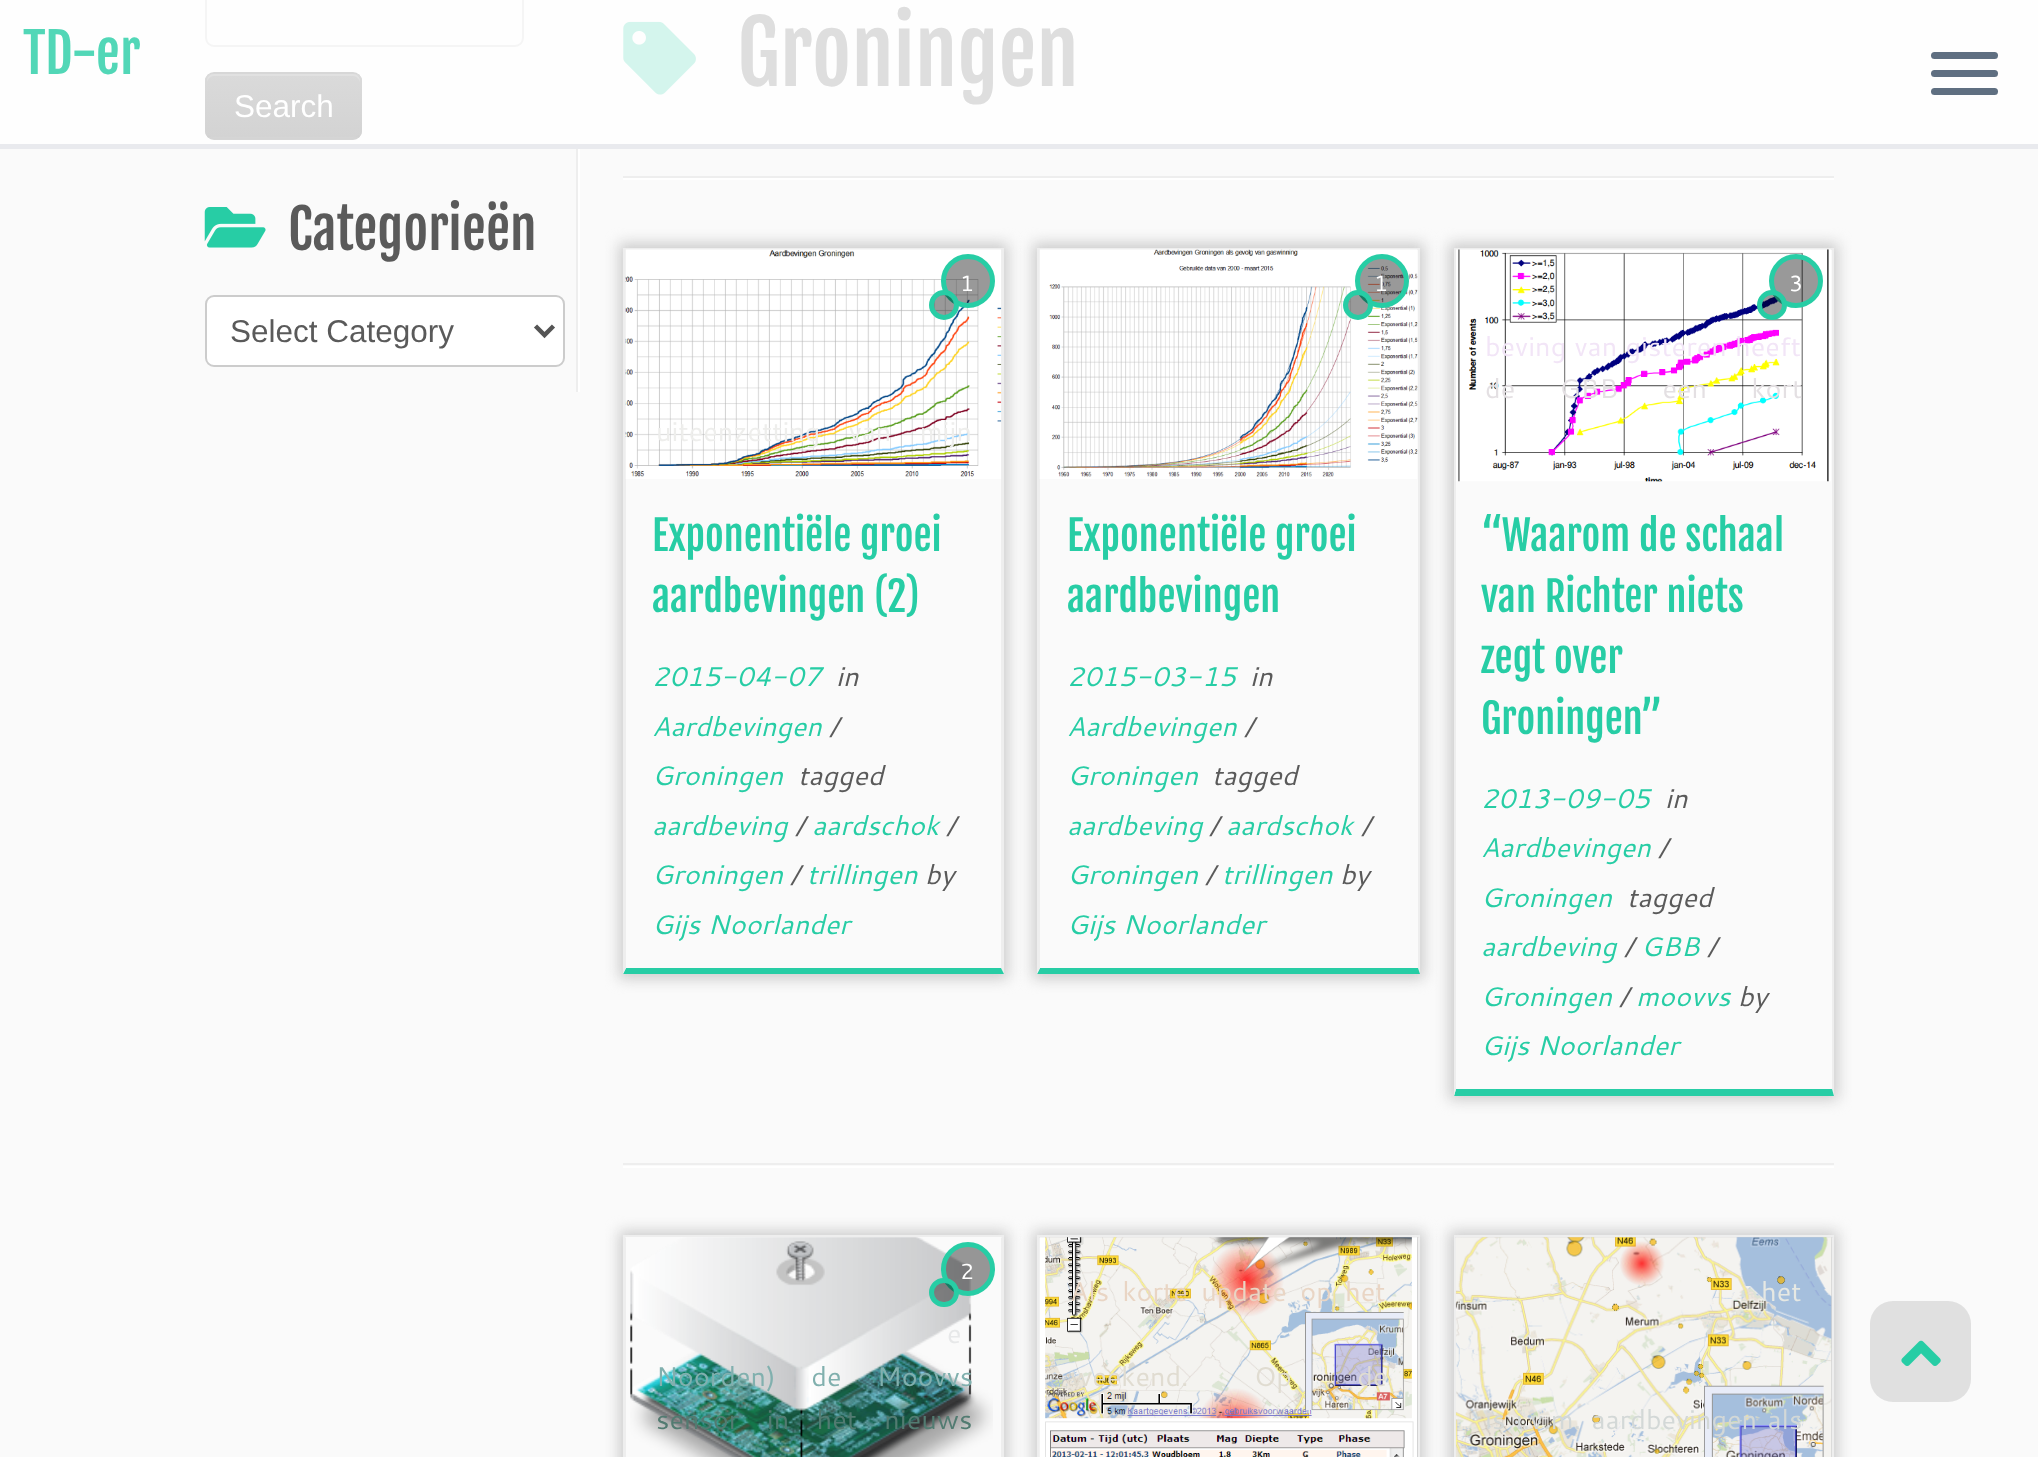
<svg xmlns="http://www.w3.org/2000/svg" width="2038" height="1457">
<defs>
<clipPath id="clip1"><rect x="205" y="72" width="157" height="68" rx="9"/></clipPath>
<linearGradient id="g1" gradientUnits="userSpaceOnUse" x1="284" y1="74" x2="284" y2="137"><stop offset="0" stop-color="#dadada"/><stop offset="1" stop-color="#d3d3d3"/></linearGradient>
<clipPath id="clip2"><path d="M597 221h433v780h-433zm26 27h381v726h-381z" clip-rule="evenodd"/></clipPath>
<clipPath id="clip3"><path d="M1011 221h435v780h-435zm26 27h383v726h-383z" clip-rule="evenodd"/></clipPath>
<clipPath id="clip4"><path d="M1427 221h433v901h-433zm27 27h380v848h-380z" clip-rule="evenodd"/></clipPath>
<clipPath id="clip5"><path d="M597 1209h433v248h-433zm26 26h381v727h-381z" clip-rule="evenodd"/></clipPath>
</defs>
<rect width="100%" height="100%" fill="#fafafa"/>
<rect width="2038" height="144" fill="#fefefe"/>
<rect x="578" y="144" width="2" height="248" fill="#fff"/>
<rect y="144" width="2038" height="5" fill="#e9eaee"/>
<text x="23" y="74" style="font-family:Fjalla One;font-size:54px;fill:#52d7b7">TD-er</text>
<rect x="1931" y="52" width="67" height="7" rx="3.5" fill="#5f6f81"/>
<rect x="1931" y="70" width="67" height="7" rx="3.5" fill="#5f6f81"/>
<rect x="1931" y="88" width="67" height="7" rx="3.5" fill="#5f6f81"/>
<rect x="576" y="149" width="2" height="243" fill="#eee"/>
<rect x="206" y="-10" width="317" height="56" rx="8" fill="none" stroke="#f5f5f5" stroke-width="2"/>
<rect x="205" y="72" width="157" height="68" rx="9" fill="#d7d7d7"/>
<g clip-path="url(#clip1)">
<rect x="205" y="74" width="157" height="63" fill="url(#g1)"/>
</g>
<path d="M214 76h139c4 0 7 4 7 7v-2c0-4-3-7-7-7h-139c-4 0-7 3-7 7v2c0-3 3-7 7-7z" fill="#ffffff33"/>
<path d="M359 136c-1.5 1.5-3.5 2.5-6 2.5h-139c-2.5 0-4.5-1-6-2.5" fill="none" stroke="#cccccc40" stroke-width="2.2"/>
<text x="234" y="117" style="font-family:Liberation Sans;font-size:31.5px;fill:#fff">Search</text>
<image x="204" y="207" width="62" height="41" href="media/1.png"/>
<text x="288" y="250" style="font-family:Fjalla One;font-size:54px;fill:#5a5a5a">Categorieën</text>
<rect x="206" y="296" width="358" height="70" rx="8" fill="#fff" stroke="#ccc" stroke-width="2"/>
<path d="M535.5 326l9 9l9-9" fill="none" stroke="#555" stroke-width="4.5"/>
<text x="230" y="342" style="font-family:Liberation Sans;font-size:31.5px;fill:#5a5a5a">Select Category</text>
<image x="623" y="21" width="73" height="74" href="media/2.png"/>
<text x="737" y="86" style="font-family:Fjalla One;font-size:85.5px;fill:#dedede">Groningen</text>
<rect x="623" y="176" width="1211" height="2" fill="#eee"/>
<rect x="623" y="178" width="1211" height="2" fill="#fff"/>
<g clip-path="url(#clip2)">
<rect x="619" y="243" width="389" height="736" fill="#ccc" filter="blur(7px)"/>
</g>
<rect x="623" y="248" width="381" height="2" fill="#eee"/>
<path d="M1004 248v726l-3-6v-718z" fill="#eee"/>
<path d="M1004 974h-381l3-6h375z" fill="#27cda5"/>
<path d="M623 974v-726l3 2v718z" fill="#eee"/>
<image x="625" y="249" width="377" height="230" href="media/3.png"/>
<circle cx="968" cy="281" r="24.5" fill="#00000066" stroke="#27cda5" stroke-width="5"/>
<text x="960" y="291" style="font-family:Cantarell;font-size:22px;fill:#fff">1</text>
<circle cx="944" cy="305" r="12.5" fill="#00000066" stroke="#27cda5" stroke-width="5"/>
<text x="656" y="441" word-spacing="21" style="font-family:Cantarell;font-size:27px;fill:#eeeeec">uiteenzetting van mijn</text>
<text x="652" y="551" style="font-family:Fjalla One;font-size:40.5px;fill:#27cda5">Exponentiële groei</text>
<text x="652" y="612" style="font-family:Fjalla One;font-size:40.5px;fill:#27cda5">aardbevingen (2)</text>
<text x="652" y="686" style="font-family:Cantarell;font-size:27px;font-style:italic;fill:#27cda5">2015-04-07</text>
<text x="836" y="686" style="font-family:Cantarell;font-size:27px;font-style:italic;fill:#5a5a5a">in</text>
<text x="652" y="736" style="font-family:Cantarell;font-size:27px;font-style:italic;fill:#27cda5">Aardbevingen</text>
<text x="829" y="736" style="font-family:Cantarell;font-size:27px;font-style:italic;fill:#5a5a5a">/</text>
<text x="652" y="785" style="font-family:Cantarell;font-size:27px;font-style:italic;fill:#27cda5">Groningen</text>
<text x="798" y="785" style="font-family:Cantarell;font-size:27px;font-style:italic;fill:#5a5a5a">tagged</text>
<text x="652" y="835" style="font-family:Cantarell;font-size:27px;font-style:italic;fill:#27cda5">aardbeving</text>
<text x="795" y="835" style="font-family:Cantarell;font-size:27px;font-style:italic;fill:#5a5a5a">/</text>
<text x="812" y="835" style="font-family:Cantarell;font-size:27px;font-style:italic;fill:#27cda5">aardschok</text>
<text x="946" y="835" style="font-family:Cantarell;font-size:27px;font-style:italic;fill:#5a5a5a">/</text>
<text x="652" y="884" style="font-family:Cantarell;font-size:27px;font-style:italic;fill:#27cda5">Groningen</text>
<text x="790" y="884" style="font-family:Cantarell;font-size:27px;font-style:italic;fill:#5a5a5a">/</text>
<text x="807" y="884" style="font-family:Cantarell;font-size:27px;font-style:italic;fill:#27cda5">trillingen</text>
<text x="925" y="884" style="font-family:Cantarell;font-size:27px;font-style:italic;fill:#5a5a5a">by</text>
<text x="652" y="934" style="font-family:Cantarell;font-size:27px;font-style:italic;fill:#27cda5">Gijs Noorlander</text>
<g clip-path="url(#clip3)">
<rect x="1033" y="243" width="391" height="736" fill="#ccc" filter="blur(7px)"/>
</g>
<rect x="1037" y="248" width="383" height="2" fill="#eee"/>
<path d="M1420 248v726l-2-6v-718z" fill="#eee"/>
<path d="M1420 974h-383l3-6h378z" fill="#27cda5"/>
<path d="M1037 974v-726l3 2v718z" fill="#eee"/>
<image x="1039" y="249" width="379" height="230" href="media/4.png"/>
<circle cx="1382" cy="281" r="24.5" fill="#00000066" stroke="#27cda5" stroke-width="5"/>
<text x="1374" y="291" style="font-family:Cantarell;font-size:22px;fill:#fff">1</text>
<circle cx="1358" cy="305" r="12.5" fill="#00000066" stroke="#27cda5" stroke-width="5"/>
<text x="1067" y="551" style="font-family:Fjalla One;font-size:40.5px;fill:#27cda5">Exponentiële groei</text>
<text x="1067" y="612" style="font-family:Fjalla One;font-size:40.5px;fill:#27cda5">aardbevingen</text>
<text x="1067" y="686" style="font-family:Cantarell;font-size:27px;font-style:italic;fill:#27cda5">2015-03-15</text>
<text x="1250" y="686" style="font-family:Cantarell;font-size:27px;font-style:italic;fill:#5a5a5a">in</text>
<text x="1067" y="736" style="font-family:Cantarell;font-size:27px;font-style:italic;fill:#27cda5">Aardbevingen</text>
<text x="1244" y="736" style="font-family:Cantarell;font-size:27px;font-style:italic;fill:#5a5a5a">/</text>
<text x="1067" y="785" style="font-family:Cantarell;font-size:27px;font-style:italic;fill:#27cda5">Groningen</text>
<text x="1212" y="785" style="font-family:Cantarell;font-size:27px;font-style:italic;fill:#5a5a5a">tagged</text>
<text x="1067" y="835" style="font-family:Cantarell;font-size:27px;font-style:italic;fill:#27cda5">aardbeving</text>
<text x="1209" y="835" style="font-family:Cantarell;font-size:27px;font-style:italic;fill:#5a5a5a">/</text>
<text x="1226" y="835" style="font-family:Cantarell;font-size:27px;font-style:italic;fill:#27cda5">aardschok</text>
<text x="1361" y="835" style="font-family:Cantarell;font-size:27px;font-style:italic;fill:#5a5a5a">/</text>
<text x="1067" y="884" style="font-family:Cantarell;font-size:27px;font-style:italic;fill:#27cda5">Groningen</text>
<text x="1205" y="884" style="font-family:Cantarell;font-size:27px;font-style:italic;fill:#5a5a5a">/</text>
<text x="1222" y="884" style="font-family:Cantarell;font-size:27px;font-style:italic;fill:#27cda5">trillingen</text>
<text x="1340" y="884" style="font-family:Cantarell;font-size:27px;font-style:italic;fill:#5a5a5a">by</text>
<text x="1067" y="934" style="font-family:Cantarell;font-size:27px;font-style:italic;fill:#27cda5">Gijs Noorlander</text>
<g clip-path="url(#clip4)">
<rect x="1449" y="243" width="389" height="857" fill="#ccc" filter="blur(7px)"/>
</g>
<rect x="1454" y="248" width="380" height="2" fill="#eee"/>
<path d="M1834 248v848l-2-7v-839z" fill="#eee"/>
<path d="M1834 1096h-380l2-7h376z" fill="#27cda5"/>
<path d="M1454 1096v-848l2 2v839z" fill="#eee"/>
<image x="1456" y="249" width="375" height="233" href="media/5.png"/>
<circle cx="1796" cy="281" r="24.5" fill="#00000066" stroke="#27cda5" stroke-width="5"/>
<text x="1789" y="291" style="font-family:Cantarell;font-size:22px;fill:#fff">3</text>
<circle cx="1772" cy="305" r="12.5" fill="#00000066" stroke="#27cda5" stroke-width="5"/>
<text x="1485" y="356" word-spacing="1" style="font-family:Cantarell;font-size:27px;fill:#f2e5f7">beving van gisteren heeft</text>
<text x="1485" y="398" word-spacing="37" style="font-family:Cantarell;font-size:27px;fill:#e4e0e3">de GBB een kort</text>
<text x="1481" y="551" style="font-family:Fjalla One;font-size:40.5px;fill:#27cda5">“Waarom de schaal</text>
<text x="1481" y="612" style="font-family:Fjalla One;font-size:40.5px;fill:#27cda5">van Richter niets</text>
<text x="1481" y="673" style="font-family:Fjalla One;font-size:40.5px;fill:#27cda5">zegt over</text>
<text x="1481" y="734" style="font-family:Fjalla One;font-size:40.5px;fill:#27cda5">Groningen”</text>
<text x="1481" y="808" style="font-family:Cantarell;font-size:27px;font-style:italic;fill:#27cda5">2013-09-05</text>
<text x="1665" y="808" style="font-family:Cantarell;font-size:27px;font-style:italic;fill:#5a5a5a">in</text>
<text x="1481" y="857" style="font-family:Cantarell;font-size:27px;font-style:italic;fill:#27cda5">Aardbevingen</text>
<text x="1658" y="857" style="font-family:Cantarell;font-size:27px;font-style:italic;fill:#5a5a5a">/</text>
<text x="1481" y="907" style="font-family:Cantarell;font-size:27px;font-style:italic;fill:#27cda5">Groningen</text>
<text x="1627" y="907" style="font-family:Cantarell;font-size:27px;font-style:italic;fill:#5a5a5a">tagged</text>
<text x="1481" y="956" style="font-family:Cantarell;font-size:27px;font-style:italic;fill:#27cda5">aardbeving</text>
<text x="1624" y="956" style="font-family:Cantarell;font-size:27px;font-style:italic;fill:#5a5a5a">/</text>
<text x="1641" y="956" style="font-family:Cantarell;font-size:27px;font-style:italic;fill:#27cda5">GBB</text>
<text x="1707" y="956" style="font-family:Cantarell;font-size:27px;font-style:italic;fill:#5a5a5a">/</text>
<text x="1481" y="1006" style="font-family:Cantarell;font-size:27px;font-style:italic;fill:#27cda5">Groningen</text>
<text x="1619" y="1006" style="font-family:Cantarell;font-size:27px;font-style:italic;fill:#5a5a5a">/</text>
<text x="1636" y="1006" style="font-family:Cantarell;font-size:27px;font-style:italic;fill:#27cda5">moovvs</text>
<text x="1738" y="1006" style="font-family:Cantarell;font-size:27px;font-style:italic;fill:#5a5a5a">by</text>
<text x="1481" y="1055" style="font-family:Cantarell;font-size:27px;font-style:italic;fill:#27cda5">Gijs Noorlander</text>
<rect x="623" y="1163" width="1211" height="2" fill="#eee"/>
<rect x="623" y="1166" width="1211" height="2" fill="#fff"/>
<g clip-path="url(#clip5)">
<rect x="619" y="1231" width="389" height="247" fill="#ccc" filter="blur(7px)"/>
</g>
<rect x="623" y="1235" width="381" height="2" fill="#eee"/>
<path d="M1004 1235v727l-3-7v-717z" fill="#eee"/>
<path d="M623 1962v-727l3 3v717z" fill="#eee"/>
<image x="630" y="1237" width="363" height="220" href="media/6.png"/>
<circle cx="968" cy="1269" r="24.5" fill="#00000066" stroke="#27cda5" stroke-width="5"/>
<text x="960" y="1279" style="font-family:Cantarell;font-size:22px;fill:#fff">2</text>
<rect x="931.5" y="1280.5" width="25" height="24" rx="12" fill="#00000066" stroke="#27cda5" stroke-width="5"/>
<text x="947" y="1343" word-spacing="28" style="font-family:Cantarell;font-size:27px;fill:#e7e8e9">e</text>
<text x="656" y="1386" word-spacing="28" style="font-family:Cantarell;font-size:27px;fill:#81b0ae">Noorden) de Moovvs</text>
<text x="656" y="1429" word-spacing="20" style="font-family:Cantarell;font-size:27px;fill:#527b71">sensor in het nieuws</text>
<rect x="1033" y="1231" width="391" height="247" fill="#ccc" filter="blur(7px)"/>
<rect x="1037" y="1235" width="383" height="2" fill="#eee"/>
<path d="M1420 1235v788l-2-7v-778z" fill="#eee"/>
<path d="M1037 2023v-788l3 3v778z" fill="#eee"/>
<image x="1039" y="1237" width="378" height="220" href="media/7.png"/>
<text x="1070" y="1301" word-spacing="6" style="font-family:Cantarell;font-size:27px;fill:#e9d5c4">Als korte update op het</text>
<text x="1070" y="1386" word-spacing="58" style="font-family:Cantarell;font-size:27px;fill:#e0dcd1">weekend. Op de</text>
<rect x="1449" y="1231" width="389" height="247" fill="#ccc" filter="blur(7px)"/>
<rect x="1454" y="1235" width="380" height="2" fill="#eee"/>
<path d="M1834 1235v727l-2-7v-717z" fill="#eee"/>
<path d="M1454 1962v-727l2 3v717z" fill="#eee"/>
<image x="1455" y="1237" width="377" height="220" href="media/8.png"/>
<text x="1761" y="1301" word-spacing="2" style="font-family:Cantarell;font-size:27px;fill:#e6e8e3">het</text>
<text x="1485" y="1429" word-spacing="3" style="font-family:Cantarell;font-size:27px;fill:#d3d8d7">is i.v.m. aardbevingen als</text>
<rect x="1870" y="1301" width="101" height="101" rx="23" fill="#e0e0e0"/>
<image x="1901" y="1340" width="40" height="26" href="media/9.png"/>
</svg>
